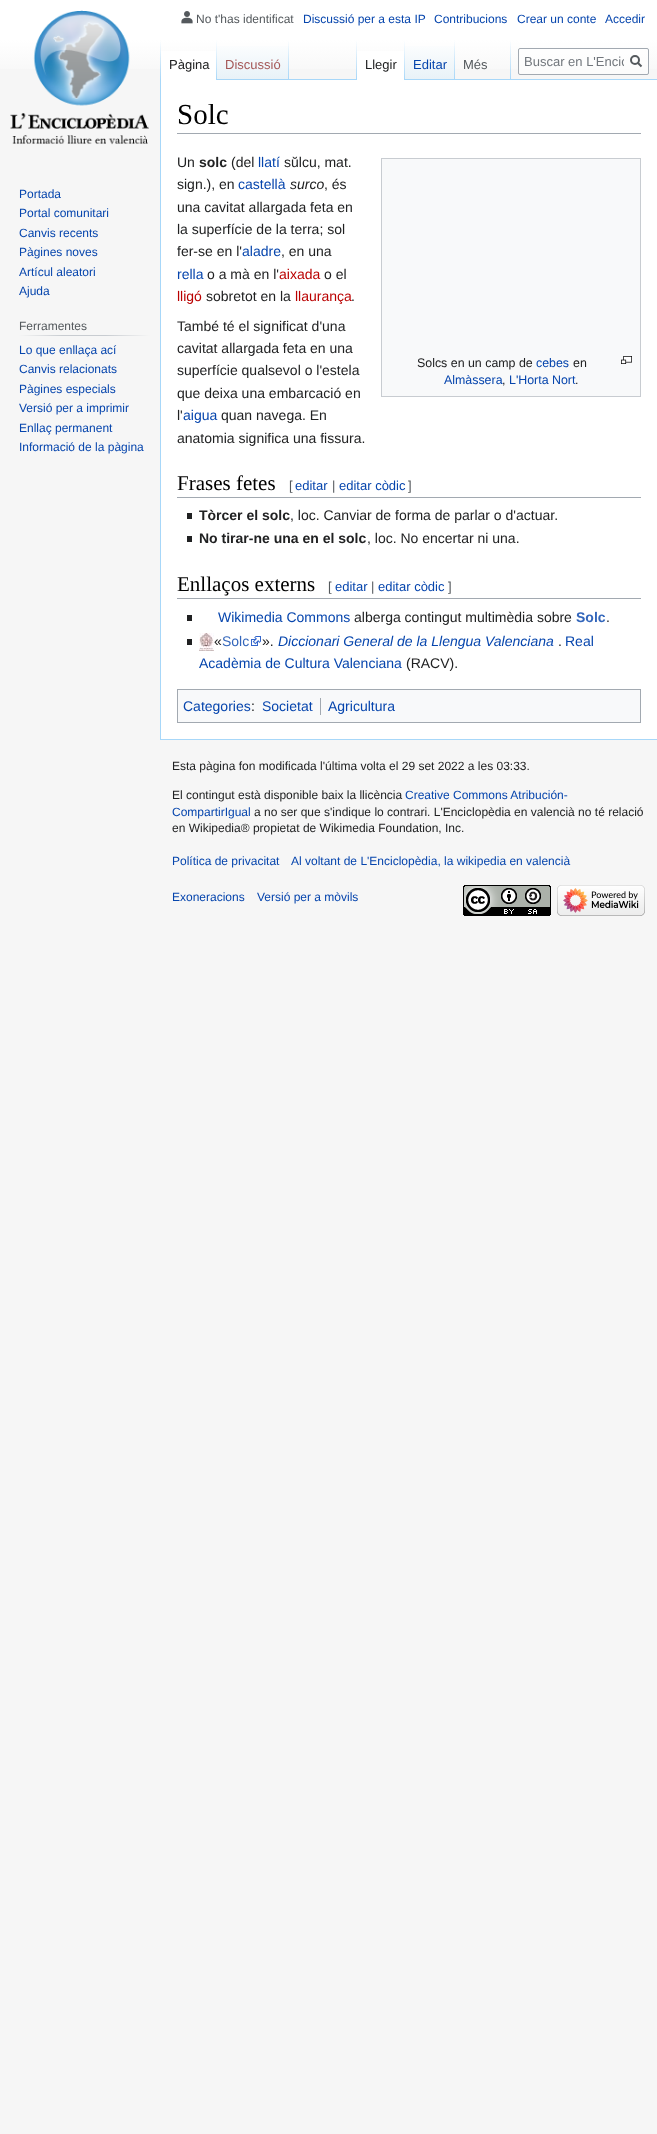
<svg xmlns="http://www.w3.org/2000/svg" width="657" height="2134">
<defs>
<linearGradient id="g1" gradientUnits="userSpaceOnUse" x1="329" y1="0" x2="329" y2="80"><stop offset="0.5" stop-color="#fff"/><stop offset="1" stop-color="#f6f6f6"/></linearGradient>
<linearGradient id="g2" gradientUnits="userSpaceOnUse" x1="161" y1="40" x2="161" y2="80"><stop offset="0" stop-color="#a7d7f9" stop-opacity="0"/><stop offset="1" stop-color="#a7d7f9"/></linearGradient>
<linearGradient id="g3" gradientUnits="userSpaceOnUse" x1="217" y1="40" x2="217" y2="80"><stop offset="0" stop-color="#fff"/><stop offset="1" stop-color="#a7d7f9"/></linearGradient>
<linearGradient id="g4" gradientUnits="userSpaceOnUse" x1="253" y1="80" x2="253" y2="40"><stop offset="0" stop-color="#77c1f6"/><stop offset="0.03" stop-color="#e8f2f8"/><stop offset="1" stop-color="#fff"/></linearGradient>
<linearGradient id="g5" gradientUnits="userSpaceOnUse" x1="289" y1="40" x2="289" y2="80"><stop offset="0" stop-color="#a7d7f9" stop-opacity="0"/><stop offset="1" stop-color="#a7d7f9"/></linearGradient>
<linearGradient id="g6" gradientUnits="userSpaceOnUse" x1="357" y1="40" x2="357" y2="80"><stop offset="0" stop-color="#a7d7f9" stop-opacity="0"/><stop offset="1" stop-color="#a7d7f9"/></linearGradient>
<linearGradient id="g7" gradientUnits="userSpaceOnUse" x1="405" y1="40" x2="405" y2="80"><stop offset="0" stop-color="#fff"/><stop offset="1" stop-color="#a7d7f9"/></linearGradient>
<linearGradient id="g8" gradientUnits="userSpaceOnUse" x1="430" y1="80" x2="430" y2="40"><stop offset="0" stop-color="#77c1f6"/><stop offset="0.03" stop-color="#e8f2f8"/><stop offset="1" stop-color="#fff"/></linearGradient>
<linearGradient id="g9" gradientUnits="userSpaceOnUse" x1="455" y1="40" x2="455" y2="80"><stop offset="0" stop-color="#a7d7f9" stop-opacity="0"/><stop offset="1" stop-color="#a7d7f9"/></linearGradient>
<linearGradient id="g10" gradientUnits="userSpaceOnUse" x1="511" y1="40" x2="511" y2="80"><stop offset="0" stop-color="#a7d7f9" stop-opacity="0"/><stop offset="1" stop-color="#a7d7f9"/></linearGradient>
<clipPath id="clip1"><rect x="524" y="54" width="100" height="15"/></clipPath>
<linearGradient id="g11" gradientUnits="userSpaceOnUse" x1="19" y1="336" x2="150" y2="336"><stop offset="0" stop-color="#f6f6f6"/><stop offset="0.33" stop-color="#c8ccd1"/><stop offset="0.66" stop-color="#c8ccd1"/><stop offset="1" stop-color="#f6f6f6"/></linearGradient>
</defs>
<rect width="100%" height="100%" fill="#f6f6f6"/>
<rect width="657" height="69" fill="url(#g1)"/>
<image x="181" y="11" width="12" height="13" href="media/1.png"/>
<text x="196" y="23" style="font-family:Liberation Sans;font-size:12px;fill:#54595d">No t'has identificat</text>
<text x="303" y="23" style="font-family:Liberation Sans;font-size:12px;fill:#0645ad">Discussió per a esta IP</text>
<text x="434" y="23" style="font-family:Liberation Sans;font-size:12px;fill:#0645ad">Contribucions</text>
<text x="517" y="23" style="font-family:Liberation Sans;font-size:12px;fill:#0645ad">Crear un conte</text>
<text x="605" y="23" style="font-family:Liberation Sans;font-size:12px;fill:#0645ad">Accedir</text>
<rect x="160" y="739" width="497" height="1" fill="#a7d7f9"/>
<rect x="160" y="79" width="1" height="661" fill="#a7d7f9"/>
<rect x="160" y="40" width="1" height="40" fill="url(#g2)"/>
<rect x="161" y="51" width="55" height="29" fill="#fff"/>
<rect x="216" y="40" width="1" height="40" fill="url(#g3)"/>
<text x="169" y="69" style="font-family:Liberation Sans;font-size:13px;fill:#202122">Pàgina</text>
<rect x="217" y="46" width="72" height="34" fill="url(#g4)"/>
<rect x="288" y="40" width="1" height="40" fill="url(#g5)"/>
<text x="225" y="69" style="font-family:Liberation Sans;font-size:13px;fill:#a55858">Discussió</text>
<rect x="289" y="79" width="368" height="1" fill="#a7d7f9"/>
<rect x="356" y="40" width="1" height="40" fill="url(#g6)"/>
<rect x="357" y="51" width="47" height="29" fill="#fff"/>
<rect x="404" y="40" width="1" height="40" fill="url(#g7)"/>
<text x="365" y="69" style="font-family:Liberation Sans;font-size:13px;fill:#202122">Llegir</text>
<rect x="405" y="46" width="50" height="33" fill="url(#g8)"/>
<rect x="454" y="40" width="1" height="40" fill="url(#g9)"/>
<text x="413" y="69" style="font-family:Liberation Sans;font-size:13px;fill:#0645ad">Editar</text>
<rect x="510" y="40" width="1" height="40" fill="url(#g10)"/>
<text x="463" y="69" style="font-family:Liberation Sans;font-size:13px;fill:#54595d">Més</text>
<rect x="518.5" y="48.5" width="130" height="26" rx="1.5" fill="#ffffff80" stroke="#a2a9b1"/>
<g clip-path="url(#clip1)">
<text x="524" y="66" style="font-family:Liberation Sans;font-size:13px;fill:#72777d">Buscar en L'Encic</text>
</g>
<path d="M641.5 66.5l-4-4" fill="none" stroke="#54595d" stroke-width="2"/>
<circle cx="635" cy="60" r="4" fill="none" stroke="#54595d" stroke-width="2"/>
<image x="10" y="10" width="139" height="135" href="media/2.png"/>
<text x="19" y="198" style="font-family:Liberation Sans;font-size:12px;fill:#0645ad">Portada</text>
<text x="19" y="217" style="font-family:Liberation Sans;font-size:12px;fill:#0645ad">Portal comunitari</text>
<text x="19" y="237" style="font-family:Liberation Sans;font-size:12px;fill:#0645ad">Canvis recents</text>
<text x="19" y="256" style="font-family:Liberation Sans;font-size:12px;fill:#0645ad">Pàgines noves</text>
<text x="19" y="276" style="font-family:Liberation Sans;font-size:12px;fill:#0645ad">Artícul aleatori</text>
<text x="19" y="295" style="font-family:Liberation Sans;font-size:12px;fill:#0645ad">Ajuda</text>
<rect x="19" y="335" width="131" height="1" fill="url(#g11)"/>
<text x="19" y="330" style="font-family:Liberation Sans;font-size:12px;fill:#54595d">Ferramentes</text>
<text x="19" y="354" style="font-family:Liberation Sans;font-size:12px;fill:#0645ad">Lo que enllaça ací</text>
<text x="19" y="373" style="font-family:Liberation Sans;font-size:12px;fill:#0645ad">Canvis relacionats</text>
<text x="19" y="393" style="font-family:Liberation Sans;font-size:12px;fill:#0645ad">Pàgines especials</text>
<text x="19" y="412" style="font-family:Liberation Sans;font-size:12px;fill:#0645ad">Versió per a imprimir</text>
<text x="19" y="432" style="font-family:Liberation Sans;font-size:12px;fill:#0645ad">Enllaç permanent</text>
<text x="19" y="451" style="font-family:Liberation Sans;font-size:12px;fill:#0645ad">Informació de la pàgina</text>
<rect x="161" y="80" width="496" height="659" fill="#fff"/>
<rect x="177" y="133" width="464" height="1" fill="#a2a9b1"/>
<text x="177" y="124" style="font-family:Liberation Serif;font-size:29px;fill:#000">Solc</text>
<text x="177" y="167" style="font-family:Liberation Sans;font-size:14px;fill:#202122">Un</text>
<text x="199" y="167" style="font-family:Liberation Sans;font-size:14px;font-weight:bold;fill:#202122">solc</text>
<text x="231" y="167" style="font-family:Liberation Sans;font-size:14px;fill:#202122">(del</text>
<text x="258" y="167" style="font-family:Liberation Sans;font-size:14px;fill:#0645ad">llatí</text>
<text x="284" y="167" style="font-family:Liberation Sans;font-size:14px;fill:#202122">sŭlcu, mat.</text>
<text x="177" y="189" style="font-family:Liberation Sans;font-size:14px;fill:#202122">sign.), en</text>
<text x="238" y="189" style="font-family:Liberation Sans;font-size:14px;fill:#0645ad">castellà</text>
<text x="290" y="189" style="font-family:Liberation Sans;font-size:14px;font-style:italic;fill:#202122">surco</text>
<text x="324" y="189" style="font-family:Liberation Sans;font-size:14px;fill:#202122">, és</text>
<text x="177" y="212" style="font-family:Liberation Sans;font-size:14px;fill:#202122">una cavitat allargada feta en</text>
<text x="177" y="234" style="font-family:Liberation Sans;font-size:14px;fill:#202122">la superfície de la terra; sol</text>
<text x="177" y="256" style="font-family:Liberation Sans;font-size:14px;fill:#202122">fer-se en l'</text>
<text x="242" y="256" style="font-family:Liberation Sans;font-size:14px;fill:#0645ad">aladre</text>
<text x="281" y="256" style="font-family:Liberation Sans;font-size:14px;fill:#202122">, en una</text>
<text x="177" y="279" style="font-family:Liberation Sans;font-size:14px;fill:#0645ad">rella</text>
<text x="207" y="279" style="font-family:Liberation Sans;font-size:14px;fill:#202122">o a mà en l'</text>
<text x="279" y="279" style="font-family:Liberation Sans;font-size:14px;fill:#ba0000">aixada</text>
<text x="324" y="279" style="font-family:Liberation Sans;font-size:14px;fill:#202122">o el</text>
<text x="177" y="301" style="font-family:Liberation Sans;font-size:14px;fill:#ba0000">lligó</text>
<text x="206" y="301" style="font-family:Liberation Sans;font-size:14px;fill:#202122">sobretot en la</text>
<text x="295" y="301" style="font-family:Liberation Sans;font-size:14px;fill:#ba0000">llaurança</text>
<text x="351" y="301" style="font-family:Liberation Sans;font-size:14px;fill:#202122">.</text>
<text x="177" y="331" style="font-family:Liberation Sans;font-size:14px;fill:#202122">També té el significat d'una</text>
<text x="177" y="353" style="font-family:Liberation Sans;font-size:14px;fill:#202122">cavitat allargada feta en una</text>
<text x="177" y="375" style="font-family:Liberation Sans;font-size:14px;fill:#202122">superfície qualsevol o l'estela</text>
<text x="177" y="398" style="font-family:Liberation Sans;font-size:14px;fill:#202122">que deixa una embarcació en</text>
<text x="177" y="420" style="font-family:Liberation Sans;font-size:14px;fill:#202122">l'</text>
<text x="183" y="420" style="font-family:Liberation Sans;font-size:14px;fill:#0645ad">aigua</text>
<text x="221" y="420" style="font-family:Liberation Sans;font-size:14px;fill:#202122">quan navega. En</text>
<text x="177" y="443" style="font-family:Liberation Sans;font-size:14px;fill:#202122">anatomia significa una fissura.</text>
<rect x="381.5" y="158.5" width="259" height="238" fill="#f8f9fa" stroke="#c8ccd1"/>
<text x="417" y="367" style="font-family:Liberation Sans;font-size:12.4px;fill:#202122">Solcs en un camp de</text>
<text x="536" y="367" style="font-family:Liberation Sans;font-size:12.4px;fill:#0645ad">cebes</text>
<text x="573" y="367" style="font-family:Liberation Sans;font-size:12.4px;fill:#202122">en</text>
<image x="621" y="356" width="11" height="8" href="media/3.png"/>
<text x="444" y="384" style="font-family:Liberation Sans;font-size:12.4px;fill:#0645ad">Almàssera</text>
<text x="502" y="384" style="font-family:Liberation Sans;font-size:12.4px;fill:#202122">,</text>
<text x="509" y="384" style="font-family:Liberation Sans;font-size:12.4px;fill:#0645ad">L'Horta Nort</text>
<text x="575" y="384" style="font-family:Liberation Sans;font-size:12.4px;fill:#202122">.</text>
<rect x="177" y="497" width="464" height="1" fill="#a2a9b1"/>
<text x="177" y="490" style="font-family:Liberation Serif;font-size:21px;fill:#000">Frases fetes</text>
<text x="289" y="490" style="font-family:Liberation Sans;font-size:13px;fill:#54595d">[</text>
<text x="295" y="490" style="font-family:Liberation Sans;font-size:13px;fill:#0645ad">editar</text>
<text x="332" y="490" style="font-family:Liberation Sans;font-size:13px;fill:#54595d">|</text>
<text x="339" y="490" style="font-family:Liberation Sans;font-size:13px;fill:#0645ad">editar còdic</text>
<text x="408" y="490" style="font-family:Liberation Sans;font-size:13px;fill:#54595d">]</text>
<rect x="187" y="513" width="5" height="6" fill="#202122"/>
<text x="199" y="520" style="font-family:Liberation Sans;font-size:14px;font-weight:bold;fill:#202122">Tòrcer el solc</text>
<text x="290" y="520" style="font-family:Liberation Sans;font-size:14px;fill:#202122">, loc. Canviar de forma de parlar o d'actuar.</text>
<rect x="187" y="536" width="5" height="6" fill="#202122"/>
<text x="199" y="543" style="font-family:Liberation Sans;font-size:14px;font-weight:bold;fill:#202122">No tirar-ne una en el solc</text>
<text x="367" y="543" style="font-family:Liberation Sans;font-size:14px;fill:#202122">, loc. No encertar ni una.</text>
<rect x="177" y="598" width="464" height="1" fill="#a2a9b1"/>
<text x="177" y="591" style="font-family:Liberation Serif;font-size:21px;fill:#000">Enllaços externs</text>
<text x="328" y="591" style="font-family:Liberation Sans;font-size:13px;fill:#54595d">[</text>
<text x="335" y="591" style="font-family:Liberation Sans;font-size:13px;fill:#0645ad">editar</text>
<text x="371" y="591" style="font-family:Liberation Sans;font-size:13px;fill:#54595d">|</text>
<text x="378" y="591" style="font-family:Liberation Sans;font-size:13px;fill:#0645ad">editar còdic</text>
<text x="448" y="591" style="font-family:Liberation Sans;font-size:13px;fill:#54595d">]</text>
<rect x="187" y="615" width="5" height="6" fill="#202122"/>
<text x="218" y="622" style="font-family:Liberation Sans;font-size:14px;fill:#0645ad">Wikimedia Commons</text>
<text x="354" y="622" style="font-family:Liberation Sans;font-size:14px;fill:#202122">alberga contingut multimèdia sobre</text>
<text x="576" y="622" style="font-family:Liberation Sans;font-size:14px;font-weight:bold;fill:#36b">Solc</text>
<text x="606" y="622" style="font-family:Liberation Sans;font-size:14px;fill:#202122">.</text>
<rect x="187" y="639" width="5" height="6" fill="#202122"/>
<image x="199" y="633" width="15" height="18" href="media/4.png"/>
<text x="214" y="646" style="font-family:Liberation Sans;font-size:14px;fill:#202122">«</text>
<text x="222" y="646" style="font-family:Liberation Sans;font-size:14px;fill:#36b">Solc</text>
<image x="251" y="636" width="10" height="10" href="media/5.png"/>
<text x="262" y="646" style="font-family:Liberation Sans;font-size:14px;fill:#202122">».</text>
<text x="278" y="646" style="font-family:Liberation Sans;font-size:14px;font-style:italic;fill:#0645ad">Diccionari General de la Llengua Valenciana</text>
<text x="558" y="646" style="font-family:Liberation Sans;font-size:14px;fill:#202122">.</text>
<text x="565" y="646" style="font-family:Liberation Sans;font-size:14px;fill:#0645ad">Real</text>
<text x="199" y="668" style="font-family:Liberation Sans;font-size:14px;fill:#0645ad">Acadèmia de Cultura Valenciana</text>
<text x="406" y="668" style="font-family:Liberation Sans;font-size:14px;fill:#202122">(RACV).</text>
<rect x="177.5" y="689.5" width="463" height="33" fill="#f8f9fa" stroke="#a2a9b1"/>
<text x="183" y="711" style="font-family:Liberation Sans;font-size:14px;fill:#0645ad">Categories</text>
<text x="251" y="711" style="font-family:Liberation Sans;font-size:14px;fill:#202122">:</text>
<text x="262" y="711" style="font-family:Liberation Sans;font-size:14px;fill:#0645ad">Societat</text>
<rect x="320" y="698" width="1" height="17" fill="#a2a9b1"/>
<text x="328" y="711" style="font-family:Liberation Sans;font-size:14px;fill:#0645ad">Agricultura</text>
<text x="172" y="770" style="font-family:Liberation Sans;font-size:12px;fill:#202122">Esta pàgina fon modificada l'última volta el 29 set 2022 a les 03:33.</text>
<text x="172" y="799" style="font-family:Liberation Sans;font-size:12px;fill:#202122">El contingut està disponible baix la llicència</text>
<text x="405" y="799" style="font-family:Liberation Sans;font-size:12px;fill:#0645ad">Creative Commons Atribución-</text>
<text x="172" y="816" style="font-family:Liberation Sans;font-size:12px;fill:#0645ad">CompartirIgual</text>
<text x="254" y="816" style="font-family:Liberation Sans;font-size:12px;fill:#202122">a no ser que s'indique lo contrari. L'Enciclopèdia en valencià no té relació</text>
<text x="172" y="832" style="font-family:Liberation Sans;font-size:12px;fill:#202122">en Wikipedia® propietat de Wikimedia Foundation, Inc.</text>
<text x="172" y="865" style="font-family:Liberation Sans;font-size:12px;fill:#0645ad">Política de privacitat</text>
<text x="291" y="865" style="font-family:Liberation Sans;font-size:12px;fill:#0645ad">Al voltant de L'Enciclopèdia, la wikipedia en valencià</text>
<text x="172" y="901" style="font-family:Liberation Sans;font-size:12px;fill:#0645ad">Exoneracions</text>
<text x="257" y="901" style="font-family:Liberation Sans;font-size:12px;fill:#0645ad">Versió per a mòvils</text>
<image x="463" y="885" width="88" height="31" href="media/6.png"/>
<image x="557" y="885" width="88" height="31" href="media/7.png"/>
</svg>
